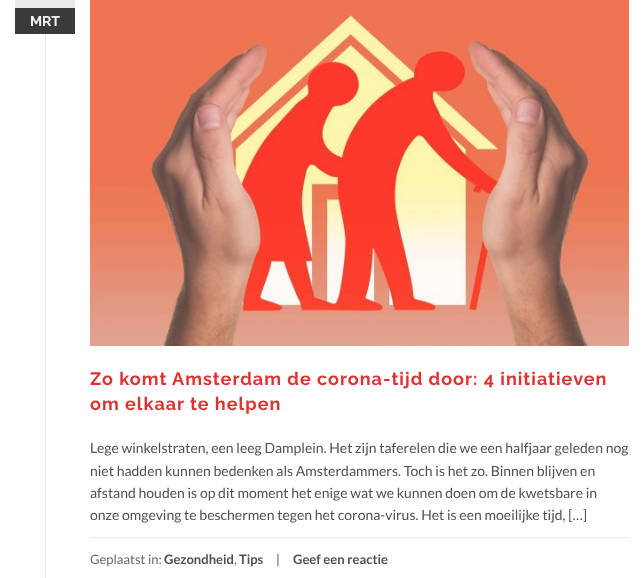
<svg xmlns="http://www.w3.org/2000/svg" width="644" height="578">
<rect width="100%" height="100%" fill="#fff"/>
<rect x="15" width="60" height="8" fill="#eaeaea"/>
<rect x="15" y="8" width="60" height="26" fill="#3a3a3a"/>
<text x="30" y="26" style="font-family:Raleway;font-size:14px;font-weight:bold;fill:#f1f1f1">MRT</text>
<image x="90" y="0" width="539" height="346" href="media/1.png"/>
<rect x="45" y="34" width="1" height="544" fill="#eaeaea"/>
<text x="90" y="385" style="font-family:Raleway;font-size:18px;font-weight:bold;letter-spacing:1px;fill:#d33">Zo komt Amsterdam de corona-tijd door: 4 initiatieven</text>
<text x="90" y="410" style="font-family:Raleway;font-size:18px;font-weight:bold;letter-spacing:1px;fill:#d33">om elkaar te helpen</text>
<text x="90" y="453" style="font-family:Lato;font-size:14px;fill:#505050">Lege winkelstraten, een leeg Damplein. Het zijn taferelen die we een halfjaar geleden nog</text>
<text x="90" y="476" style="font-family:Lato;font-size:14px;fill:#505050">niet hadden kunnen bedenken als Amsterdammers. Toch is het zo. Binnen blijven en</text>
<text x="90" y="498" style="font-family:Lato;font-size:14px;fill:#505050">afstand houden is op dit moment het enige wat we kunnen doen om de kwetsbare in</text>
<text x="90" y="520" style="font-family:Lato;font-size:14px;fill:#505050">onze omgeving te beschermen tegen het corona-virus. Het is een moeilijke tijd, […]</text>
<rect x="90" y="537" width="539" height="1" fill="#eaeaea"/>
<text x="90" y="564" style="font-family:Lato;font-size:13px;fill:#6a6a6a">Geplaatst in:</text>
<text x="164" y="564" style="font-family:Lato;font-size:13px;font-weight:bold;fill:#505050">Gezondheid</text>
<text x="234" y="564" style="font-family:Lato;font-size:13px;fill:#6a6a6a">,</text>
<text x="239" y="564" style="font-family:Lato;font-size:13px;font-weight:bold;fill:#505050">Tips</text>
<text x="276" y="564" style="font-family:Lato;font-size:13px;fill:#505050">|</text>
<text x="293" y="564" style="font-family:Lato;font-size:13px;font-weight:bold;fill:#505050">Geef een reactie</text>
</svg>
